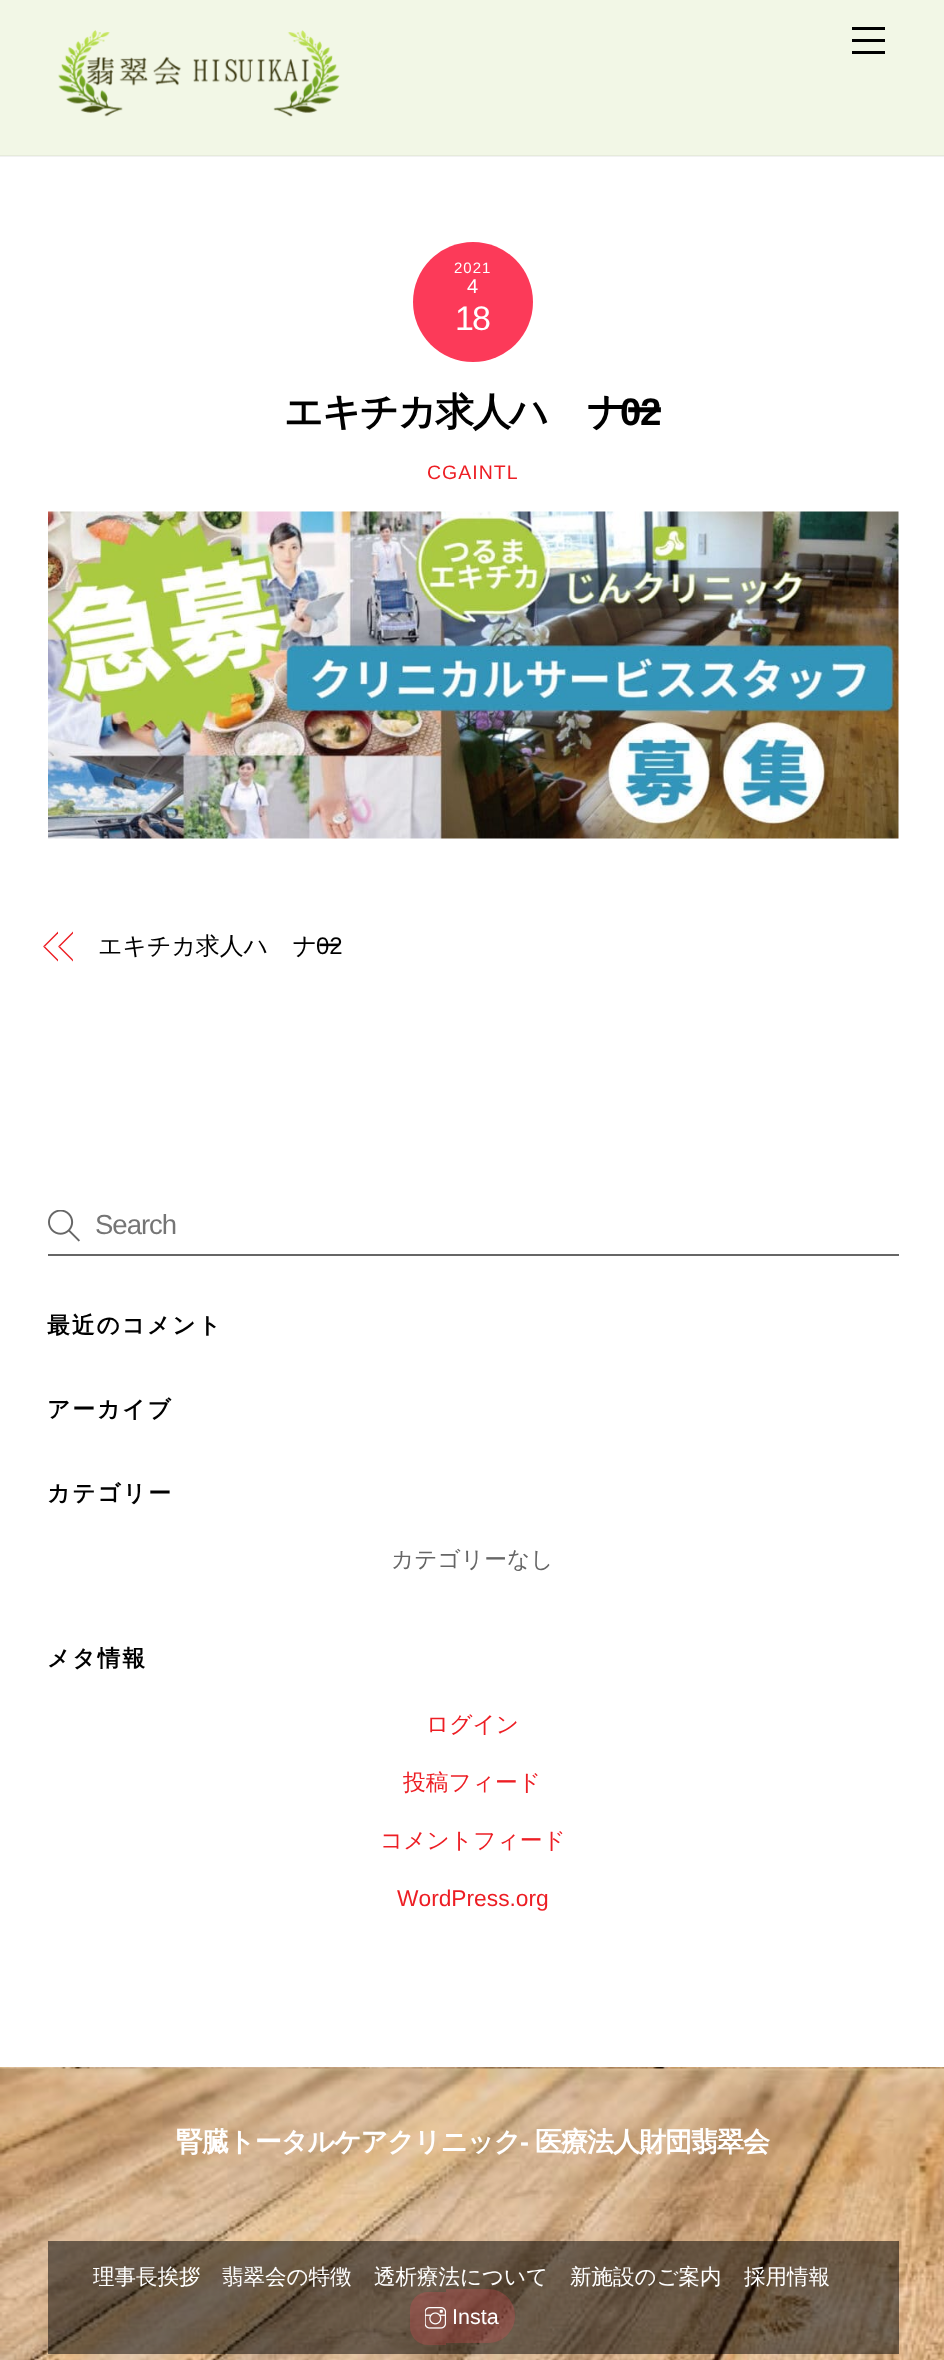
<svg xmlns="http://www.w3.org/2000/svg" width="944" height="2360">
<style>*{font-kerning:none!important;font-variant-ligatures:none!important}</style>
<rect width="100%" height="100%" fill="#fff"/>
<rect y="156" width="944" height="1" fill="#f2f2f2"/>
<rect width="944" height="155" fill="#f2f7e6"/>
<rect y="155" width="944" height="1" fill="#e6ebdb"/>
<image x="58" y="30" width="282" height="87" href="media/1.png"/>
<rect x="852" y="51" width="33" height="3" fill="#000"/>
<rect x="852" y="27" width="33" height="3" fill="#000"/>
<rect x="852" y="39" width="33" height="3" fill="#000"/>
<circle cx="473" cy="302" r="60" fill="#fc3a59"/>
<text x="454" y="273" style="font-family:Liberation Sans;font-size:15px;letter-spacing:1px;fill:#fff">2021</text>
<text x="467" y="293" style="font-family:Liberation Sans;font-size:20px;letter-spacing:1px;fill:#fff">4</text>
<text x="455" y="330" style="font-family:Liberation Sans;font-size:34px;letter-spacing:-2px;fill:#fff">18</text>
<text x="284" y="425" style="font-family:WenQuanYi Zen Hei;font-size:38.5px;font-weight:bold;letter-spacing:-1.5px;fill:#000">エキチカ求人バナー</text>
<text x="620" y="425" style="font-family:Liberation Sans;font-size:38.5px;font-weight:bold;letter-spacing:-1.5px;fill:#000">02</text>
<text x="427" y="479" style="font-family:Liberation Sans;font-size:19.5px;letter-spacing:1px;fill:#ed1e24">CGAINTL</text>
<image x="48" y="511" width="851" height="328" href="media/2.png"/>
<path d="M43 946.5l15-15v2l-13 13z" fill="#ed1e24"/>
<path d="M58 961.5l-15-15h2l13 13zm0-15l15-15v2l-13 13z" fill="#ed1e24"/>
<path d="M73 961.5l-15-15h2l13 13z" fill="#ed1e24"/>
<text x="98" y="954" style="font-family:WenQuanYi Zen Hei;font-size:24px;font-weight:500;letter-spacing:-0.1px;fill:#000">エキチカ求人バナー</text>
<text x="316" y="954" style="font-family:Liberation Sans;font-size:24px;letter-spacing:-0.1px;fill:#000">02</text>
<rect x="48" y="1254" width="851" height="2" fill="#666"/>
<image x="48" y="1210" width="32" height="32" href="media/3.png"/>
<text x="95" y="1234" style="font-family:Liberation Sans;font-size:27.5px;letter-spacing:-1px;fill:#757575">Search</text>
<text x="47" y="1333" style="font-family:WenQuanYi Zen Hei;font-size:22.75px;font-weight:bold;letter-spacing:2px;fill:#000">最近のコメント</text>
<text x="47" y="1417" style="font-family:WenQuanYi Zen Hei;font-size:22.75px;font-weight:bold;letter-spacing:2px;fill:#000">アーカイブ</text>
<text x="47" y="1501" style="font-family:WenQuanYi Zen Hei;font-size:22.75px;font-weight:bold;letter-spacing:2px;fill:#000">カテゴリー</text>
<text x="391" y="1567" style="font-family:WenQuanYi Zen Hei;font-size:22.75px;font-weight:500;fill:#666">カテゴリーなし</text>
<text x="47" y="1666" style="font-family:WenQuanYi Zen Hei;font-size:22.75px;font-weight:bold;letter-spacing:2px;fill:#000">メタ情報</text>
<text x="426" y="1732" style="font-family:WenQuanYi Zen Hei;font-size:22.75px;font-weight:500;fill:#ed1e24">ログイン</text>
<text x="403" y="1790" style="font-family:WenQuanYi Zen Hei;font-size:22.75px;font-weight:500;fill:#ed1e24">投稿フィード</text>
<text x="380" y="1848" style="font-family:WenQuanYi Zen Hei;font-size:22.75px;font-weight:500;fill:#ed1e24">コメントフィード</text>
<text x="397" y="1906" style="font-family:Liberation Sans;font-size:22.75px;fill:#ed1e24">WordPress.org</text>
<image x="0" y="2067" width="944" height="293" href="media/4.png"/>
<rect y="2067" width="944" height="2" fill="#0000000d"/>
<text x="176" y="2151" style="font-family:WenQuanYi Zen Hei;font-size:27px;font-weight:bold;letter-spacing:-1px;fill:#fff">腎臓トータルケアクリニック</text>
<text x="520" y="2151" style="font-family:Liberation Sans;font-size:27px;font-weight:bold;letter-spacing:-1px;fill:#fff">-</text>
<text x="535" y="2151" style="font-family:WenQuanYi Zen Hei;font-size:27px;font-weight:bold;letter-spacing:-1px;fill:#fff">医療法人財団翡翠会</text>
<rect x="48" y="2241" width="851" height="113" fill="#00000085"/>
<text x="93" y="2284" style="font-family:WenQuanYi Zen Hei;font-size:21.5px;font-weight:500;fill:#fff">理事長挨拶</text>
<text x="222" y="2284" style="font-family:WenQuanYi Zen Hei;font-size:21.5px;font-weight:500;fill:#fff">翡翠会の特徴</text>
<text x="374" y="2284" style="font-family:WenQuanYi Zen Hei;font-size:21.5px;font-weight:500;fill:#fff">透析療法について</text>
<text x="570" y="2284" style="font-family:WenQuanYi Zen Hei;font-size:21.5px;font-weight:500;fill:#fff">新施設のご案内</text>
<text x="744" y="2284" style="font-family:WenQuanYi Zen Hei;font-size:21.5px;font-weight:500;fill:#fff">採用情報</text>
<path d="M428 2292h18v53h-18c-10 0-18-8-18-18v-17c0-10 8-18 18-18z" fill="#ee4c5940"/>
<path d="M446 2289h42c15 0 27 12 27 27c0 15-12 27-27 27h-42z" fill="#ee4c5940"/>
<image x="425" y="2307" width="21" height="22" href="media/5.png"/>
<text x="452" y="2324" style="font-family:Liberation Sans;font-size:21.5px;fill:#fff">Insta</text>
</svg>
